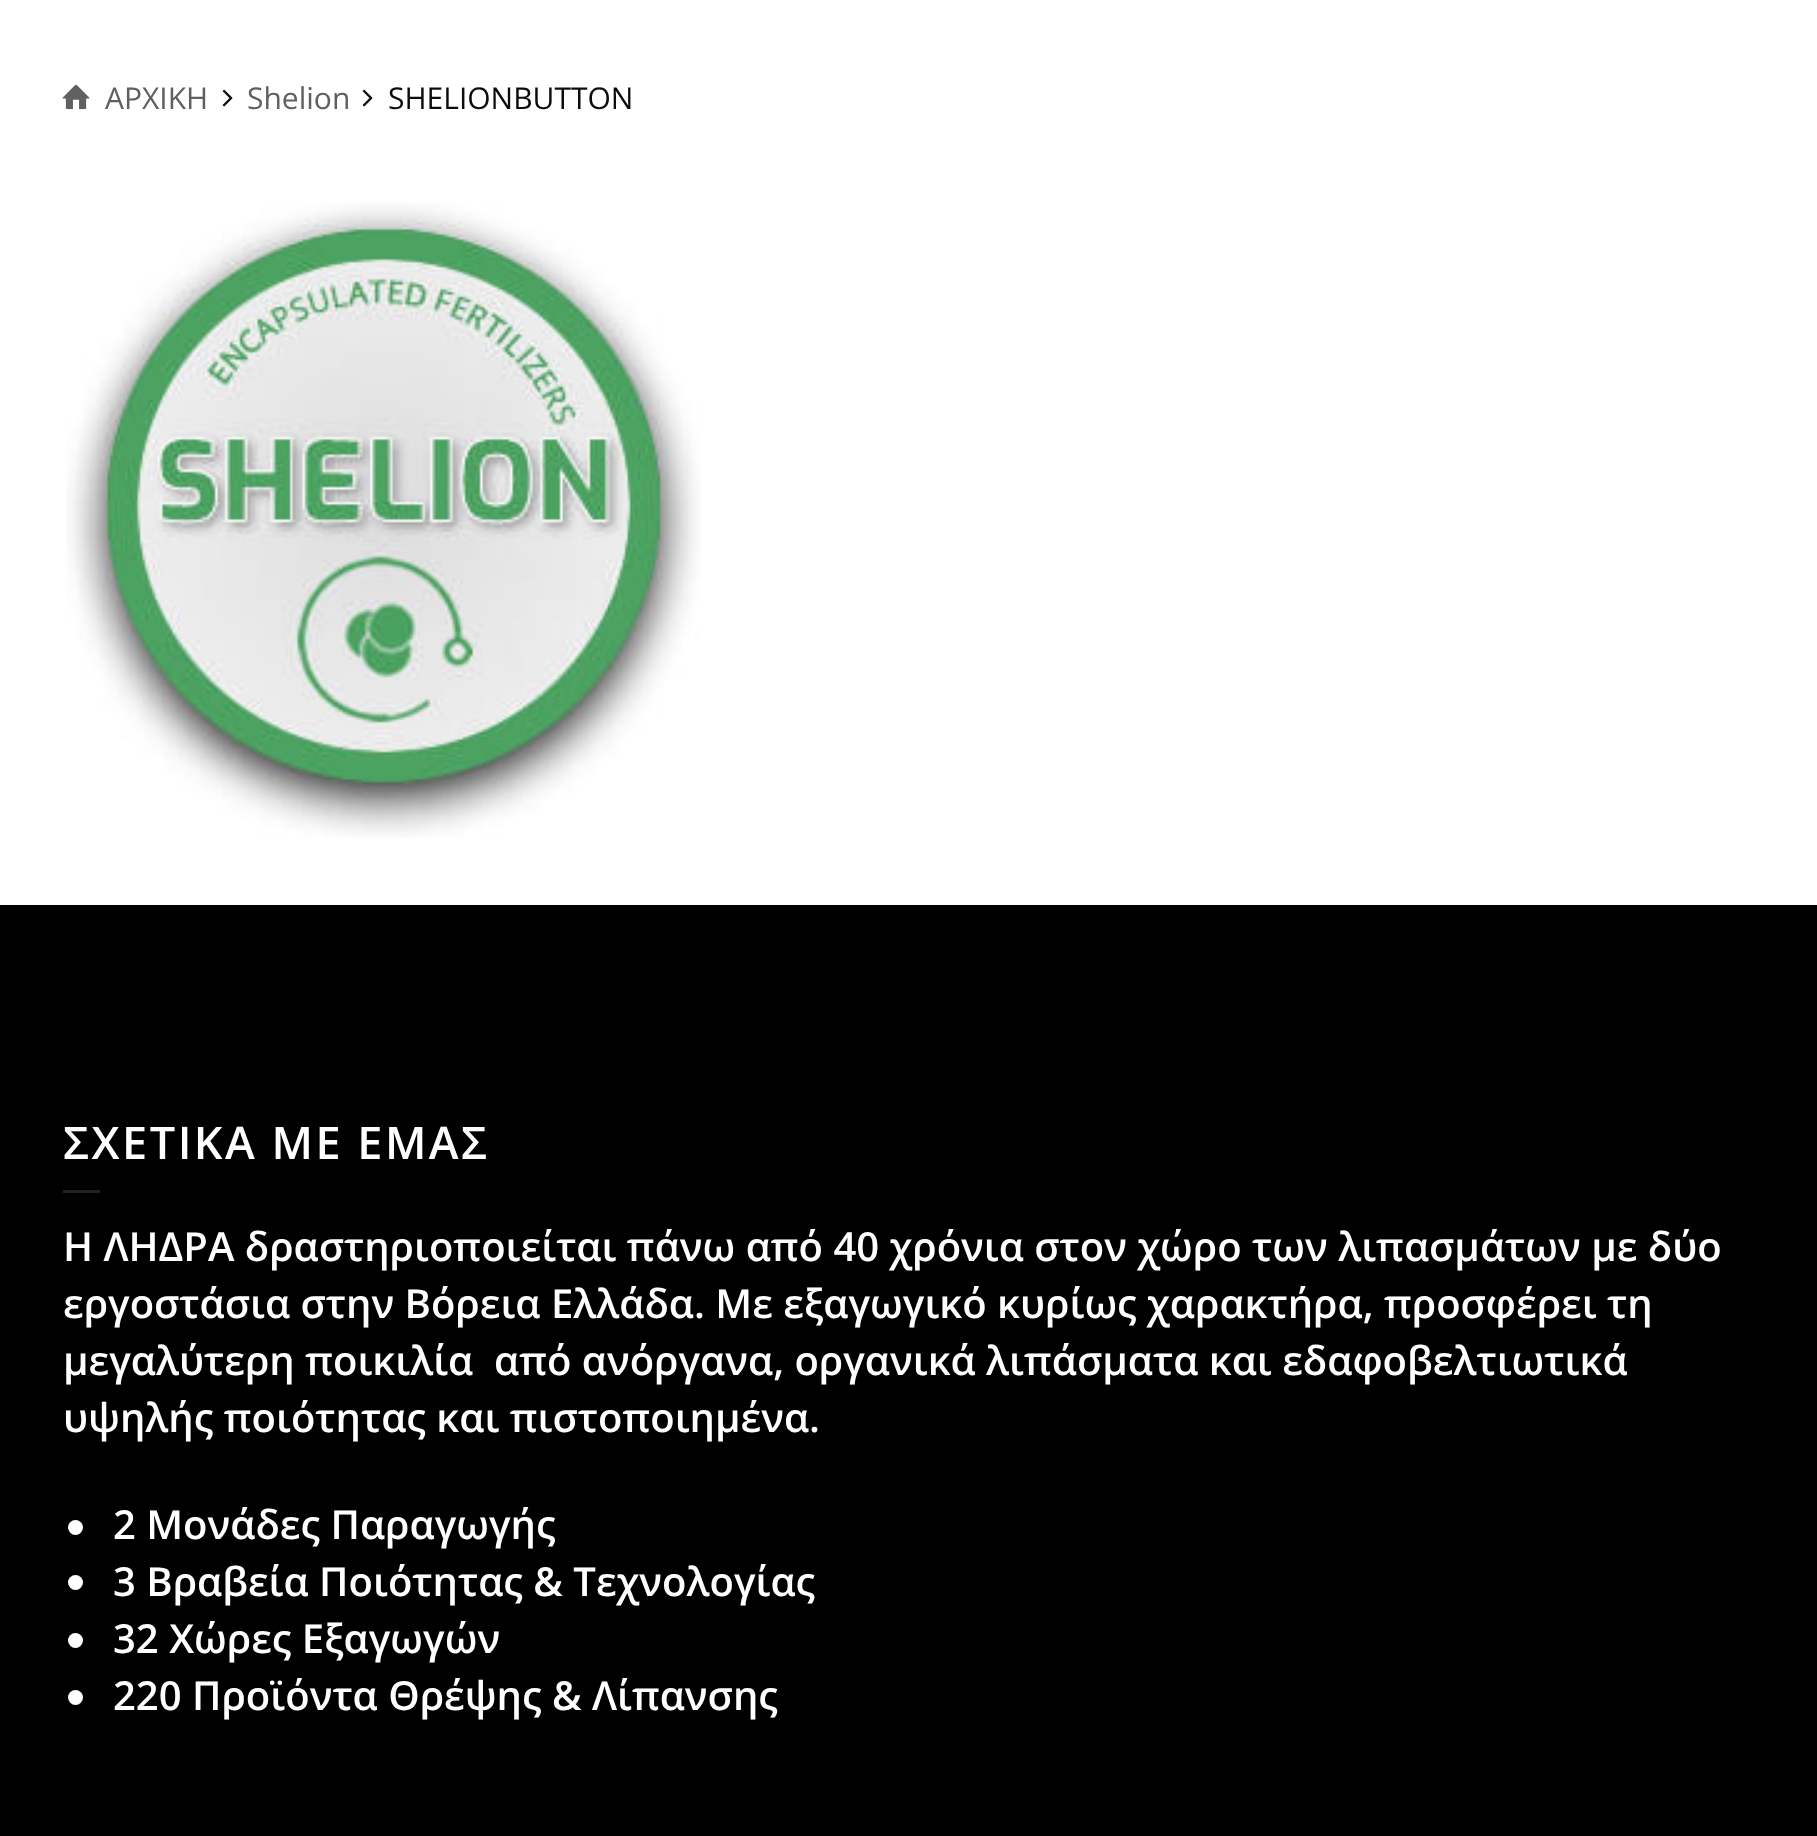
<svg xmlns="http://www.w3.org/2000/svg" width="1817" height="1836">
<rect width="100%" height="100%" fill="#fff"/>
<image x="62" y="84" width="28" height="26" href="media/1.png"/>
<text x="105" y="109" style="font-family:Open Sans;font-size:30px;fill:#606060">ΑΡΧΙΚΗ</text>
<image x="222" y="89" width="11" height="18" href="media/2.png"/>
<text x="247" y="109" style="font-family:Open Sans;font-size:30px;fill:#606060">Shelion</text>
<image x="362" y="89" width="11" height="18" href="media/2.png"/>
<text x="388" y="109" style="font-family:Open Sans;font-size:30px;fill:#0c0c0c">SHELIONBUTTON</text>
<image x="66" y="202" width="635" height="636" href="media/3.png"/>
<rect y="905" width="1817" height="931" fill="#000"/>
<text x="63" y="1159" style="font-family:Open Sans;font-size:45px;font-weight:600;letter-spacing:2.5px;fill:#fff">ΣΧΕΤΙΚΑ ΜΕ ΕΜΑΣ</text>
<rect x="63" y="1190" width="37" height="3" fill="#222"/>
<text x="63" y="1261" style="font-family:Open Sans;font-size:40px;font-weight:600;fill:#fff">H ΛΗΔΡΑ δραστηριοποιείται πάνω από 40 χρόνια στον χώρο των λιπασμάτων με δύο</text>
<text x="63" y="1318" style="font-family:Open Sans;font-size:40px;font-weight:600;fill:#fff">εργοστάσια στην Βόρεια Ελλάδα. Με εξαγωγικό κυρίως χαρακτήρα, προσφέρει τη</text>
<text x="63" y="1375" style="font-family:Open Sans;font-size:40px;font-weight:600;fill:#fff" xml:space="preserve">μεγαλύτερη ποικιλία  από ανόργανα, οργανικά λιπάσματα και εδαφοβελτιωτικά</text>
<text x="63" y="1432" style="font-family:Open Sans;font-size:40px;font-weight:600;fill:#fff">υψηλής ποιότητας και πιστοποιημένα.</text>
<circle cx="75.5" cy="1527.5" r="7.5" fill="#fff"/>
<text x="113" y="1539" style="font-family:Open Sans;font-size:40px;font-weight:600;fill:#fff">2 Μονάδες Παραγωγής</text>
<circle cx="75.5" cy="1582.5" r="7.5" fill="#fff"/>
<text x="113" y="1596" style="font-family:Open Sans;font-size:40px;font-weight:600;fill:#fff">3 Βραβεία Ποιότητας &amp; Τεχνολογίας</text>
<circle cx="75.5" cy="1640.5" r="7.5" fill="#fff"/>
<text x="113" y="1653" style="font-family:Open Sans;font-size:40px;font-weight:600;fill:#fff">32 Χώρες Εξαγωγών</text>
<circle cx="75.5" cy="1697.5" r="7.5" fill="#fff"/>
<text x="113" y="1710" style="font-family:Open Sans;font-size:40px;font-weight:600;fill:#fff">220 Προϊόντα Θρέψης &amp; Λίπανσης</text>
</svg>
